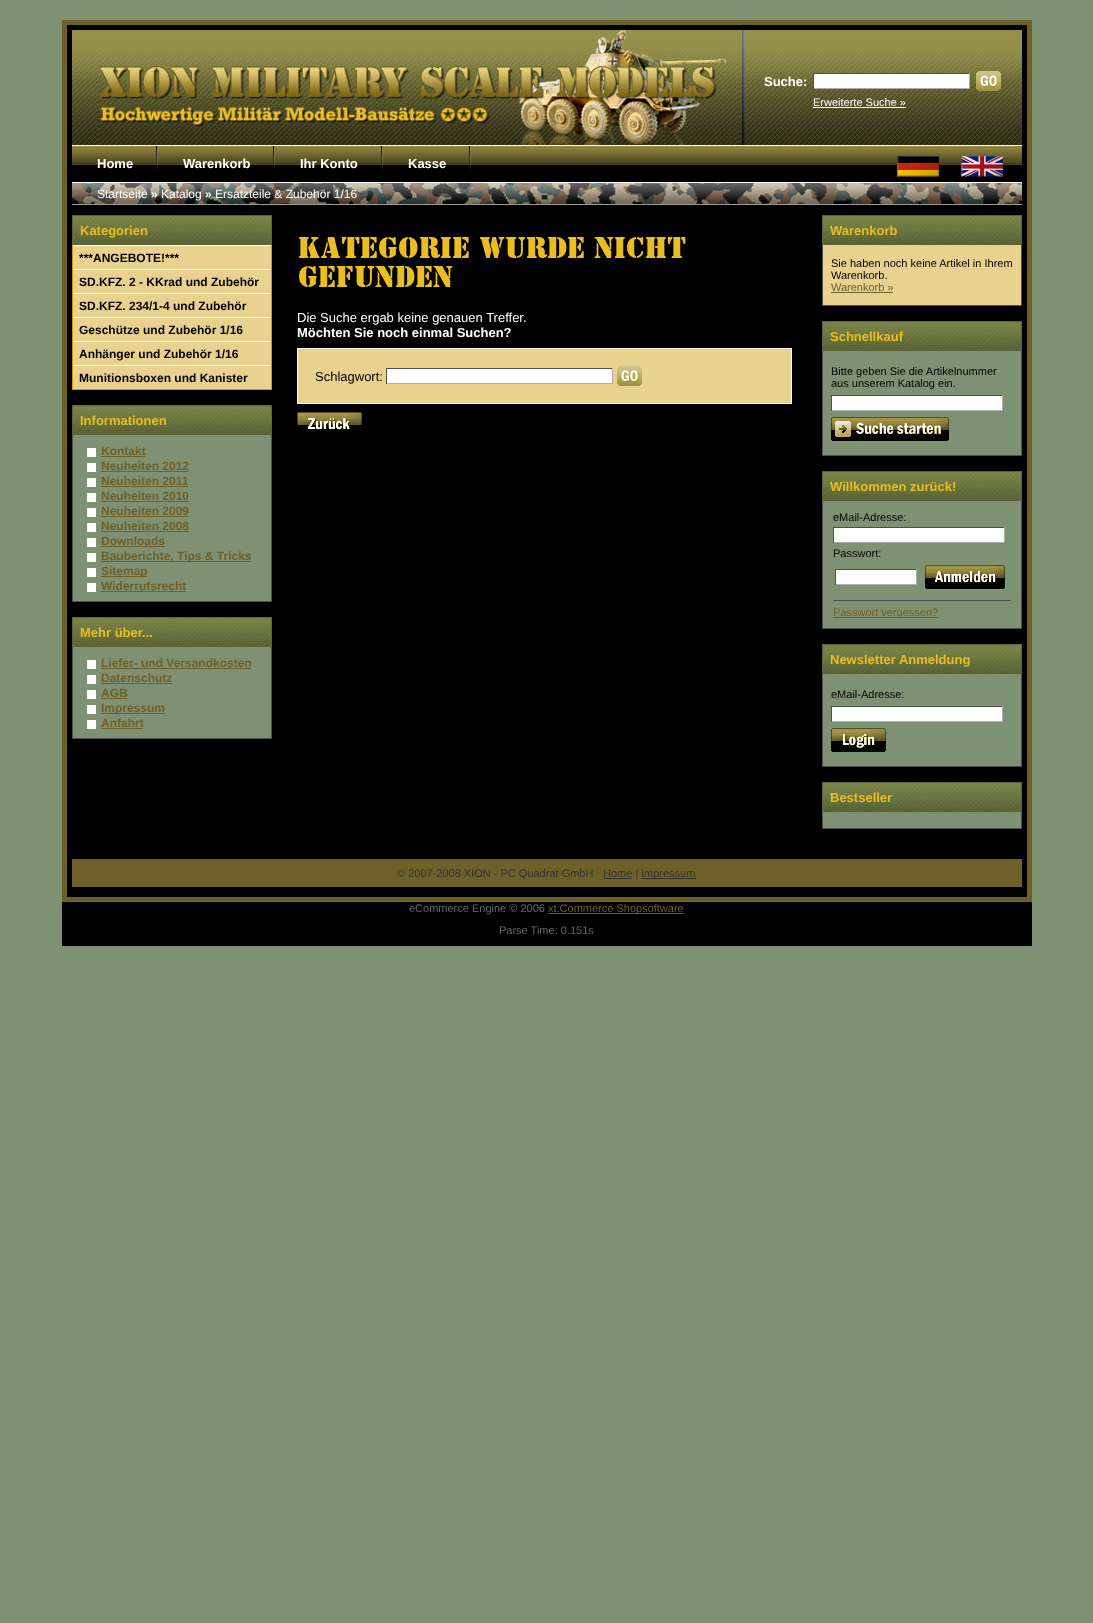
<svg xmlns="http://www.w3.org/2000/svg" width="1093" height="1623">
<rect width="100%" height="100%" fill="#7f9173"/>
<rect x="64.5" y="22.5" width="965" height="877" fill="#000" stroke="#6e6028" stroke-width="5"/>
<image x="72" y="30" width="950" height="115" href="media/1.png"/>
<rect x="72" y="145" width="950" height="1" fill="#fff"/>
<image x="99" y="30" width="640" height="115" href="media/2.png"/>
<image x="742" y="30" width="3" height="115" href="media/3.png"/>
<text x="764" y="86" style="font-family:Liberation Sans;font-size:13px;font-weight:bold;fill:#fff">Suche:</text>
<rect x="814" y="74" width="155" height="14" fill="#fff"/>
<rect x="813" y="73" width="157" height="1" fill="#4e4e4f"/>
<rect x="969" y="73" width="1" height="16" fill="#aeaeae"/>
<rect x="813" y="88" width="157" height="1" fill="#aeaeae"/>
<rect x="813" y="73" width="1" height="16" fill="#4e4e4f"/>
<image x="976" y="71" width="25" height="20" href="media/4.png"/>
<text x="813" y="106" style="font-family:Liberation Sans;font-size:11px;fill:#fff">Erweiterte Suche »</text>
<rect x="813" y="107" width="93" height="1" fill="#fff"/>
<image x="72" y="146" width="950" height="19" href="media/5.png"/>
<image x="156" y="146" width="2" height="25" href="media/6.png"/>
<text x="97" y="168" style="font-family:Liberation Sans;font-size:13px;font-weight:bold;fill:#fff">Home</text>
<image x="273" y="146" width="2" height="25" href="media/6.png"/>
<text x="183" y="168" style="font-family:Liberation Sans;font-size:13px;font-weight:bold;fill:#fff">Warenkorb</text>
<image x="381" y="146" width="2" height="25" href="media/6.png"/>
<text x="300" y="168" style="font-family:Liberation Sans;font-size:13px;font-weight:bold;fill:#fff">Ihr Konto</text>
<image x="469" y="146" width="2" height="25" href="media/6.png"/>
<text x="408" y="168" style="font-family:Liberation Sans;font-size:13px;font-weight:bold;fill:#fff">Kasse</text>
<image x="897" y="156" width="42" height="21" href="media/7.png"/>
<image x="961" y="156" width="42" height="21" href="media/8.png"/>
<image x="72" y="182" width="950" height="23" href="media/9.png"/>
<text x="97" y="198" style="font-family:Liberation Sans;font-size:12px;fill:#fff">Startseite</text>
<text x="151" y="198" style="font-family:Liberation Sans;font-size:12px;font-weight:bold;fill:#fff">»</text>
<text x="161" y="198" style="font-family:Liberation Sans;font-size:12px;fill:#fff">Katalog</text>
<text x="205" y="198" style="font-family:Liberation Sans;font-size:12px;font-weight:bold;fill:#fff">»</text>
<text x="215" y="198" style="font-family:Liberation Sans;font-size:12px;fill:#fff">Ersatzteile &amp; Zubehör 1/16</text>
<image x="72" y="215" width="200" height="30" href="media/10.png"/>
<text x="80" y="235" style="font-family:Liberation Sans;font-size:13px;font-weight:bold;fill:#eabe1f">Kategorien</text>
<rect x="271" y="245" width="1" height="145" fill="#db9502"/>
<rect x="72" y="389" width="200" height="1" fill="#db9502"/>
<rect x="72" y="245" width="1" height="145" fill="#db9502"/>
<rect x="73" y="246" width="198" height="23" fill="#e9d28f"/>
<rect x="73" y="245" width="198" height="1" fill="#fff"/>
<text x="79" y="262" style="font-family:Liberation Sans;font-size:12px;font-weight:bold;fill:#000">***ANGEBOTE!***</text>
<rect x="73" y="270" width="198" height="23" fill="#e9d28f"/>
<rect x="73" y="269" width="198" height="1" fill="#fff"/>
<text x="79" y="286" style="font-family:Liberation Sans;font-size:12px;font-weight:bold;fill:#000">SD.KFZ. 2 - KKrad und Zubehör</text>
<rect x="73" y="294" width="198" height="23" fill="#e9d28f"/>
<rect x="73" y="293" width="198" height="1" fill="#fff"/>
<text x="79" y="310" style="font-family:Liberation Sans;font-size:12px;font-weight:bold;fill:#000">SD.KFZ. 234/1-4 und Zubehör</text>
<rect x="73" y="318" width="198" height="23" fill="#e9d28f"/>
<rect x="73" y="317" width="198" height="1" fill="#fff"/>
<text x="79" y="334" style="font-family:Liberation Sans;font-size:12px;font-weight:bold;fill:#000">Geschütze und Zubehör 1/16</text>
<rect x="73" y="342" width="198" height="23" fill="#e9d28f"/>
<rect x="73" y="341" width="198" height="1" fill="#fff"/>
<text x="79" y="358" style="font-family:Liberation Sans;font-size:12px;font-weight:bold;fill:#000">Anhänger und Zubehör 1/16</text>
<rect x="73" y="366" width="198" height="23" fill="#e9d28f"/>
<rect x="73" y="365" width="198" height="1" fill="#fff"/>
<text x="79" y="382" style="font-family:Liberation Sans;font-size:12px;font-weight:bold;fill:#000">Munitionsboxen und Kanister</text>
<image x="72" y="405" width="200" height="30" href="media/10.png"/>
<text x="80" y="425" style="font-family:Liberation Sans;font-size:13px;font-weight:bold;fill:#eabe1f">Informationen</text>
<rect x="73" y="435" width="198" height="166" fill="#7f9173"/>
<rect x="271" y="435" width="1" height="167" fill="#4e4e4f"/>
<rect x="72" y="601" width="200" height="1" fill="#4e4e4f"/>
<rect x="72" y="435" width="1" height="167" fill="#4e4e4f"/>
<text x="101" y="455" style="font-family:Liberation Sans;font-size:12px;font-weight:bold;fill:#6e6028">Kontakt</text>
<rect x="87" y="448" width="9" height="9" fill="#fff"/>
<rect x="101" y="456" width="44" height="1" fill="#6e6028"/>
<text x="101" y="470" style="font-family:Liberation Sans;font-size:12px;font-weight:bold;fill:#6e6028">Neuheiten 2012</text>
<rect x="87" y="463" width="9" height="9" fill="#fff"/>
<rect x="101" y="471" width="88" height="1" fill="#6e6028"/>
<text x="101" y="485" style="font-family:Liberation Sans;font-size:12px;font-weight:bold;fill:#6e6028">Neuheiten 2011</text>
<rect x="87" y="478" width="9" height="9" fill="#fff"/>
<rect x="101" y="486" width="87" height="1" fill="#6e6028"/>
<text x="101" y="500" style="font-family:Liberation Sans;font-size:12px;font-weight:bold;fill:#6e6028">Neuheiten 2010</text>
<rect x="87" y="493" width="9" height="9" fill="#fff"/>
<rect x="101" y="501" width="88" height="1" fill="#6e6028"/>
<text x="101" y="515" style="font-family:Liberation Sans;font-size:12px;font-weight:bold;fill:#6e6028">Neuheiten 2009</text>
<rect x="87" y="508" width="9" height="9" fill="#fff"/>
<rect x="101" y="516" width="88" height="1" fill="#6e6028"/>
<text x="101" y="530" style="font-family:Liberation Sans;font-size:12px;font-weight:bold;fill:#6e6028">Neuheiten 2008</text>
<rect x="87" y="523" width="9" height="9" fill="#fff"/>
<rect x="101" y="531" width="88" height="1" fill="#6e6028"/>
<text x="101" y="545" style="font-family:Liberation Sans;font-size:12px;font-weight:bold;fill:#6e6028">Downloads</text>
<rect x="87" y="538" width="9" height="9" fill="#fff"/>
<rect x="101" y="546" width="64" height="1" fill="#6e6028"/>
<rect x="101" y="561" width="150" height="1" fill="#6e6028"/>
<text x="101" y="560" style="font-family:Liberation Sans;font-size:12px;font-weight:bold;fill:#6e6028">Bauberichte, Tips &amp; Tricks</text>
<rect x="87" y="553" width="9" height="9" fill="#fff"/>
<rect x="101" y="576" width="46" height="1" fill="#6e6028"/>
<text x="101" y="575" style="font-family:Liberation Sans;font-size:12px;font-weight:bold;fill:#6e6028">Sitemap</text>
<rect x="87" y="568" width="9" height="9" fill="#fff"/>
<text x="101" y="590" style="font-family:Liberation Sans;font-size:12px;font-weight:bold;fill:#6e6028">Widerrufsrecht</text>
<rect x="87" y="583" width="9" height="9" fill="#fff"/>
<rect x="101" y="591" width="85" height="1" fill="#6e6028"/>
<image x="72" y="617" width="200" height="30" href="media/10.png"/>
<text x="80" y="637" style="font-family:Liberation Sans;font-size:13px;font-weight:bold;fill:#eabe1f">Mehr über...</text>
<rect x="73" y="647" width="198" height="91" fill="#7f9173"/>
<rect x="271" y="647" width="1" height="92" fill="#4e4e4f"/>
<rect x="72" y="738" width="200" height="1" fill="#4e4e4f"/>
<rect x="72" y="647" width="1" height="92" fill="#4e4e4f"/>
<text x="101" y="667" style="font-family:Liberation Sans;font-size:12px;font-weight:bold;fill:#6e6028">Liefer- und Versandkosten</text>
<rect x="87" y="660" width="9" height="9" fill="#fff"/>
<rect x="101" y="668" width="150" height="1" fill="#6e6028"/>
<text x="101" y="682" style="font-family:Liberation Sans;font-size:12px;font-weight:bold;fill:#6e6028">Datenschutz</text>
<rect x="87" y="675" width="9" height="9" fill="#fff"/>
<rect x="101" y="683" width="71" height="1" fill="#6e6028"/>
<text x="101" y="697" style="font-family:Liberation Sans;font-size:12px;font-weight:bold;fill:#6e6028">AGB</text>
<rect x="87" y="690" width="9" height="9" fill="#fff"/>
<rect x="101" y="698" width="26" height="1" fill="#6e6028"/>
<rect x="101" y="713" width="64" height="1" fill="#6e6028"/>
<text x="101" y="712" style="font-family:Liberation Sans;font-size:12px;font-weight:bold;fill:#6e6028">Impressum</text>
<rect x="87" y="705" width="9" height="9" fill="#fff"/>
<text x="101" y="727" style="font-family:Liberation Sans;font-size:12px;font-weight:bold;fill:#6e6028">Anfahrt</text>
<rect x="87" y="720" width="9" height="9" fill="#fff"/>
<rect x="101" y="728" width="42" height="1" fill="#6e6028"/>
<image x="298" y="237" width="171" height="21" href="media/11.png"/>
<image x="479" y="237" width="105" height="21" href="media/12.png"/>
<image x="594" y="237" width="92" height="21" href="media/13.png"/>
<image x="299" y="266" width="154" height="21" href="media/14.png"/>
<text x="297" y="322" style="font-family:Liberation Sans;font-size:13px;fill:#fff">Die Suche ergab keine genauen Treffer.</text>
<text x="297" y="337" style="font-family:Liberation Sans;font-size:13px;font-weight:bold;fill:#fff">Möchten Sie noch einmal Suchen?</text>
<rect x="297.5" y="348.5" width="494" height="55" fill="#e9d28f" stroke="#fff"/>
<text x="315" y="381" style="font-family:Liberation Sans;font-size:13px;fill:#000">Schlagwort:</text>
<rect x="387" y="369" width="225" height="14" fill="#fff"/>
<rect x="386" y="368" width="227" height="1" fill="#4e4e4f"/>
<rect x="612" y="368" width="1" height="16" fill="#aeaeae"/>
<rect x="386" y="383" width="227" height="1" fill="#aeaeae"/>
<rect x="386" y="368" width="1" height="16" fill="#4e4e4f"/>
<image x="617" y="366" width="25" height="20" href="media/15.png"/>
<image x="297" y="412" width="65" height="18" href="media/16.png"/>
<image x="822" y="215" width="200" height="30" href="media/10.png"/>
<text x="830" y="235" style="font-family:Liberation Sans;font-size:13px;font-weight:bold;fill:#eabe1f">Warenkorb</text>
<rect x="823" y="245" width="198" height="60" fill="#e9d28f"/>
<rect x="1021" y="245" width="1" height="61" fill="#4e4e4f"/>
<rect x="822" y="305" width="200" height="1" fill="#4e4e4f"/>
<rect x="822" y="245" width="1" height="61" fill="#4e4e4f"/>
<text x="831" y="267" style="font-family:Liberation Sans;font-size:11px;fill:#000">Sie haben noch keine Artikel in Ihrem</text>
<text x="831" y="279" style="font-family:Liberation Sans;font-size:11px;fill:#000">Warenkorb.</text>
<text x="831" y="291" style="font-family:Liberation Sans;font-size:11px;fill:#6e6028">Warenkorb »</text>
<rect x="831" y="292" width="62" height="1" fill="#6e6028"/>
<image x="822" y="321" width="200" height="30" href="media/10.png"/>
<text x="830" y="341" style="font-family:Liberation Sans;font-size:13px;font-weight:bold;fill:#eabe1f">Schnellkauf</text>
<rect x="823" y="351" width="198" height="104" fill="#7f9173"/>
<rect x="1021" y="351" width="1" height="105" fill="#4e4e4f"/>
<rect x="822" y="455" width="200" height="1" fill="#4e4e4f"/>
<rect x="822" y="351" width="1" height="105" fill="#4e4e4f"/>
<text x="831" y="375" style="font-family:Liberation Sans;font-size:11px;fill:#000">Bitte geben Sie die Artikelnummer</text>
<text x="831" y="387" style="font-family:Liberation Sans;font-size:11px;fill:#000">aus unserem Katalog ein.</text>
<rect x="832" y="396" width="170" height="14" fill="#fff"/>
<rect x="831" y="395" width="172" height="1" fill="#4e4e4f"/>
<rect x="1002" y="395" width="1" height="16" fill="#aeaeae"/>
<rect x="831" y="410" width="172" height="1" fill="#aeaeae"/>
<rect x="831" y="395" width="1" height="16" fill="#4e4e4f"/>
<image x="831" y="417" width="118" height="24" href="media/17.png"/>
<image x="822" y="471" width="200" height="30" href="media/10.png"/>
<text x="830" y="491" style="font-family:Liberation Sans;font-size:13px;font-weight:bold;fill:#eabe1f">Willkommen zurück!</text>
<rect x="823" y="501" width="198" height="127" fill="#7f9173"/>
<rect x="1021" y="501" width="1" height="128" fill="#4e4e4f"/>
<rect x="822" y="628" width="200" height="1" fill="#4e4e4f"/>
<rect x="822" y="501" width="1" height="128" fill="#4e4e4f"/>
<text x="833" y="521" style="font-family:Liberation Sans;font-size:11px;fill:#000">eMail-Adresse:</text>
<rect x="834" y="528" width="170" height="14" fill="#fff"/>
<rect x="833" y="527" width="172" height="1" fill="#4e4e4f"/>
<rect x="1004" y="527" width="1" height="16" fill="#aeaeae"/>
<rect x="833" y="542" width="172" height="1" fill="#aeaeae"/>
<rect x="833" y="527" width="1" height="16" fill="#4e4e4f"/>
<text x="833" y="557" style="font-family:Liberation Sans;font-size:11px;fill:#000">Passwort:</text>
<rect x="836" y="570" width="80" height="14" fill="#fff"/>
<rect x="835" y="569" width="82" height="1" fill="#4e4e4f"/>
<rect x="916" y="569" width="1" height="16" fill="#aeaeae"/>
<rect x="835" y="584" width="82" height="1" fill="#aeaeae"/>
<rect x="835" y="569" width="1" height="16" fill="#4e4e4f"/>
<image x="925" y="565" width="80" height="24" href="media/18.png"/>
<rect x="833" y="600" width="178" height="1" fill="#4e4e4f"/>
<rect x="833" y="617" width="105" height="1" fill="#6e6028"/>
<text x="833" y="616" style="font-family:Liberation Sans;font-size:11px;fill:#6e6028">Passwort vergessen?</text>
<image x="822" y="644" width="200" height="30" href="media/10.png"/>
<text x="830" y="664" style="font-family:Liberation Sans;font-size:13px;font-weight:bold;fill:#eabe1f">Newsletter Anmeldung</text>
<rect x="823" y="674" width="198" height="92" fill="#7f9173"/>
<rect x="1021" y="674" width="1" height="93" fill="#4e4e4f"/>
<rect x="822" y="766" width="200" height="1" fill="#4e4e4f"/>
<rect x="822" y="674" width="1" height="93" fill="#4e4e4f"/>
<text x="831" y="698" style="font-family:Liberation Sans;font-size:11px;fill:#000">eMail-Adresse:</text>
<rect x="832" y="707" width="170" height="14" fill="#fff"/>
<rect x="831" y="706" width="172" height="1" fill="#4e4e4f"/>
<rect x="1002" y="706" width="1" height="16" fill="#aeaeae"/>
<rect x="831" y="721" width="172" height="1" fill="#aeaeae"/>
<rect x="831" y="706" width="1" height="16" fill="#4e4e4f"/>
<image x="831" y="728" width="55" height="24" href="media/19.png"/>
<image x="822" y="782" width="200" height="30" href="media/10.png"/>
<text x="830" y="802" style="font-family:Liberation Sans;font-size:13px;font-weight:bold;fill:#eabe1f">Bestseller</text>
<rect x="823" y="812" width="198" height="16" fill="#7f9173"/>
<rect x="1021" y="812" width="1" height="17" fill="#4e4e4f"/>
<rect x="822" y="828" width="200" height="1" fill="#4e4e4f"/>
<rect x="822" y="812" width="1" height="17" fill="#4e4e4f"/>
<rect x="72" y="859" width="950" height="28" fill="#6e6028"/>
<text x="397" y="877" style="font-family:Liberation Sans;font-size:11px;fill:#333">© 2007-2008 XION - PC Quadrat GmbH</text>
<rect x="603" y="878" width="29" height="1" fill="#333"/>
<text x="603" y="877" style="font-family:Liberation Sans;font-size:11px;fill:#333">Home |</text>
<rect x="641" y="878" width="55" height="1" fill="#333"/>
<text x="641" y="877" style="font-family:Liberation Sans;font-size:11px;fill:#333">Impressum</text>
<rect x="62" y="902" width="970" height="44" fill="#000"/>
<text x="409" y="912" style="font-family:Liberation Sans;font-size:11px;fill:#666">eCommerce Engine © 2006</text>
<rect x="548" y="913" width="136" height="1" fill="#6e6028"/>
<text x="548" y="912" style="font-family:Liberation Sans;font-size:11px;fill:#6e6028">xt:Commerce Shopsoftware</text>
<text x="499" y="934" style="font-family:Liberation Sans;font-size:11px;fill:#666">Parse Time: 0.151s</text>
</svg>
